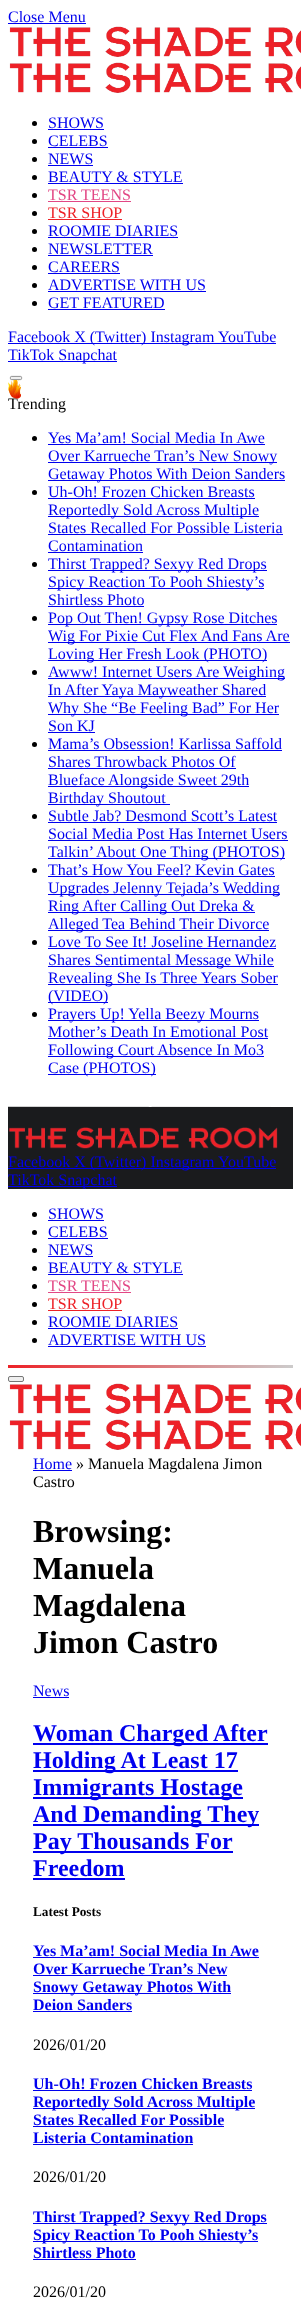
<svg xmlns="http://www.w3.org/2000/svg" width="301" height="2322">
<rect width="100%" height="100%" fill="#fff"/>
<text x="8" y="22" style="font-family:Liberation Serif;font-size:16px;fill:#00e">Close Menu</text>
<rect x="8" y="23" width="78" height="1" fill="#00e"/>
<image x="9" y="26" width="292" height="31" href="media/1.png"/>
<image x="9" y="62" width="292" height="31" href="media/1.png"/>
<circle cx="34.5" cy="123.5" r="2.5" fill="#000"/>
<text x="48" y="128" style="font-family:Liberation Serif;font-size:16px;fill:#00e">SHOWS</text>
<rect x="48" y="129" width="56" height="1" fill="#00e"/>
<circle cx="34.5" cy="141.5" r="2.5" fill="#000"/>
<text x="48" y="146" style="font-family:Liberation Serif;font-size:16px;fill:#00e">CELEBS</text>
<rect x="48" y="147" width="60" height="1" fill="#00e"/>
<circle cx="34.5" cy="159.5" r="2.5" fill="#000"/>
<text x="48" y="164" style="font-family:Liberation Serif;font-size:16px;fill:#00e">NEWS</text>
<rect x="48" y="165" width="45" height="1" fill="#00e"/>
<circle cx="34.5" cy="177.5" r="2.5" fill="#000"/>
<text x="48" y="182" style="font-family:Liberation Serif;font-size:16px;fill:#00e">BEAUTY &amp; STYLE</text>
<rect x="48" y="183" width="135" height="1" fill="#00e"/>
<circle cx="34.5" cy="195.5" r="2.5" fill="#000"/>
<text x="48" y="200" style="font-family:Liberation Serif;font-size:16px;fill:#e24785">TSR TEENS</text>
<rect x="48" y="201" width="83" height="1" fill="#e24785"/>
<circle cx="34.5" cy="213.5" r="2.5" fill="#000"/>
<text x="48" y="218" style="font-family:Liberation Serif;font-size:16px;fill:#ed2127">TSR SHOP</text>
<rect x="48" y="219" width="74" height="1" fill="#ed2127"/>
<circle cx="34.5" cy="231.5" r="2.5" fill="#000"/>
<text x="48" y="236" style="font-family:Liberation Serif;font-size:16px;fill:#00e">ROOMIE DIARIES</text>
<rect x="48" y="237" width="130" height="1" fill="#00e"/>
<circle cx="34.5" cy="249.5" r="2.5" fill="#000"/>
<text x="48" y="254" style="font-family:Liberation Serif;font-size:16px;fill:#00e">NEWSLETTER</text>
<rect x="48" y="255" width="105" height="1" fill="#00e"/>
<circle cx="34.5" cy="267.5" r="2.5" fill="#000"/>
<text x="48" y="272" style="font-family:Liberation Serif;font-size:16px;fill:#00e">CAREERS</text>
<rect x="48" y="273" width="72" height="1" fill="#00e"/>
<circle cx="34.5" cy="285.5" r="2.5" fill="#000"/>
<text x="48" y="290" style="font-family:Liberation Serif;font-size:16px;fill:#00e">ADVERTISE WITH US</text>
<rect x="48" y="291" width="158" height="1" fill="#00e"/>
<circle cx="34.5" cy="303.5" r="2.5" fill="#000"/>
<text x="48" y="308" style="font-family:Liberation Serif;font-size:16px;fill:#00e">GET FEATURED</text>
<rect x="48" y="309" width="117" height="1" fill="#00e"/>
<rect x="8" y="343" width="206" height="1" fill="#00e"/>
<text x="8" y="342" style="font-family:Liberation Serif;font-size:16px;fill:#00e">Facebook X (Twitter) Instagram</text>
<text x="218" y="342" style="font-family:Liberation Serif;font-size:16px;fill:#00e">YouTube</text>
<rect x="214" y="343" width="62" height="1" fill="#00e"/>
<rect x="8" y="361" width="109" height="1" fill="#00e"/>
<text x="8" y="360" style="font-family:Liberation Serif;font-size:16px;fill:#00e">TikTok Snapchat</text>
<image x="8" y="1106" width="263" height="1" href="media/2.png"/>
<rect x="10.4" y="376.4" width="11.2" height="3.2" rx="1.1" fill="#efefef" stroke="#767676" stroke-width="0.8"/>
<text x="8" y="409" style="font-family:Liberation Serif;font-size:16px;fill:#000">Trending</text>
<image x="8" y="380" width="13" height="19" href="media/3.png"/>
<circle cx="34.5" cy="438.5" r="2.5" fill="#000"/>
<text x="48" y="443" style="font-family:Liberation Serif;font-size:16px;fill:#00e">Yes Ma’am! Social Media In Awe</text>
<rect x="48" y="444" width="217" height="1" fill="#00e"/>
<rect x="48" y="462" width="229" height="1" fill="#00e"/>
<text x="48" y="461" style="font-family:Liberation Serif;font-size:16px;fill:#00e">Over Karrueche Tran’s New Snowy</text>
<rect x="48" y="480" width="237" height="1" fill="#00e"/>
<text x="48" y="479" style="font-family:Liberation Serif;font-size:16px;fill:#00e">Getaway Photos With Deion Sanders</text>
<circle cx="34.5" cy="492.5" r="2.5" fill="#000"/>
<text x="48" y="497" style="font-family:Liberation Serif;font-size:16px;fill:#00e">Uh-Oh! Frozen Chicken Breasts</text>
<rect x="48" y="498" width="207" height="1" fill="#00e"/>
<rect x="48" y="516" width="211" height="1" fill="#00e"/>
<text x="48" y="515" style="font-family:Liberation Serif;font-size:16px;fill:#00e">Reportedly Sold Across Multiple</text>
<text x="48" y="533" style="font-family:Liberation Serif;font-size:16px;fill:#00e">States Recalled For Possible Listeria</text>
<rect x="48" y="534" width="235" height="1" fill="#00e"/>
<text x="48" y="551" style="font-family:Liberation Serif;font-size:16px;fill:#00e">Contamination</text>
<rect x="48" y="552" width="95" height="1" fill="#00e"/>
<circle cx="34.5" cy="564.5" r="2.5" fill="#000"/>
<rect x="48" y="570" width="219" height="1" fill="#00e"/>
<text x="48" y="569" style="font-family:Liberation Serif;font-size:16px;fill:#00e">Thirst Trapped? Sexyy Red Drops</text>
<rect x="48" y="588" width="216" height="1" fill="#00e"/>
<text x="48" y="587" style="font-family:Liberation Serif;font-size:16px;fill:#00e">Spicy Reaction To Pooh Shiesty’s</text>
<text x="48" y="605" style="font-family:Liberation Serif;font-size:16px;fill:#00e">Shirtless Photo</text>
<rect x="48" y="606" width="96" height="1" fill="#00e"/>
<circle cx="34.5" cy="618.5" r="2.5" fill="#000"/>
<rect x="48" y="624" width="229" height="1" fill="#00e"/>
<text x="48" y="623" style="font-family:Liberation Serif;font-size:16px;fill:#00e">Pop Out Then! Gypsy Rose Ditches</text>
<rect x="48" y="642" width="242" height="1" fill="#00e"/>
<text x="48" y="641" style="font-family:Liberation Serif;font-size:16px;fill:#00e">Wig For Pixie Cut Flex And Fans Are</text>
<rect x="48" y="660" width="219" height="1" fill="#00e"/>
<text x="48" y="659" style="font-family:Liberation Serif;font-size:16px;fill:#00e">Loving Her Fresh Look (PHOTO)</text>
<circle cx="34.5" cy="672.5" r="2.5" fill="#000"/>
<rect x="48" y="678" width="237" height="1" fill="#00e"/>
<text x="48" y="677" style="font-family:Liberation Serif;font-size:16px;fill:#00e">Awww! Internet Users Are Weighing</text>
<rect x="48" y="696" width="218" height="1" fill="#00e"/>
<text x="48" y="695" style="font-family:Liberation Serif;font-size:16px;fill:#00e">In After Yaya Mayweather Shared</text>
<rect x="48" y="714" width="231" height="1" fill="#00e"/>
<text x="48" y="713" style="font-family:Liberation Serif;font-size:16px;fill:#00e">Why She “Be Feeling Bad” For Her</text>
<text x="48" y="731" style="font-family:Liberation Serif;font-size:16px;fill:#00e">Son KJ</text>
<rect x="48" y="732" width="47" height="1" fill="#00e"/>
<circle cx="34.5" cy="744.5" r="2.5" fill="#000"/>
<text x="48" y="749" style="font-family:Liberation Serif;font-size:16px;fill:#00e">Mama’s Obsession! Karlissa Saffold</text>
<rect x="48" y="750" width="234" height="1" fill="#00e"/>
<text x="48" y="767" style="font-family:Liberation Serif;font-size:16px;fill:#00e">Shares Throwback Photos Of</text>
<rect x="48" y="768" width="188" height="1" fill="#00e"/>
<rect x="48" y="786" width="201" height="1" fill="#00e"/>
<text x="48" y="785" style="font-family:Liberation Serif;font-size:16px;fill:#00e">Blueface Alongside Sweet 29th</text>
<rect x="48" y="804" width="122" height="1" fill="#00e"/>
<text x="48" y="803" style="font-family:Liberation Serif;font-size:16px;fill:#00e">Birthday Shoutout</text>
<circle cx="34.5" cy="816.5" r="2.5" fill="#000"/>
<text x="48" y="821" style="font-family:Liberation Serif;font-size:16px;fill:#00e">Subtle Jab? Desmond Scott’s Latest</text>
<rect x="48" y="822" width="229" height="1" fill="#00e"/>
<text x="48" y="839" style="font-family:Liberation Serif;font-size:16px;fill:#00e">Social Media Post Has Internet Users</text>
<rect x="48" y="840" width="240" height="1" fill="#00e"/>
<rect x="48" y="858" width="237" height="1" fill="#00e"/>
<text x="48" y="857" style="font-family:Liberation Serif;font-size:16px;fill:#00e">Talkin’ About One Thing (PHOTOS)</text>
<circle cx="34.5" cy="870.5" r="2.5" fill="#000"/>
<text x="48" y="875" style="font-family:Liberation Serif;font-size:16px;fill:#00e">That’s How You Feel? Kevin Gates</text>
<rect x="48" y="876" width="227" height="1" fill="#00e"/>
<rect x="48" y="894" width="232" height="1" fill="#00e"/>
<text x="48" y="893" style="font-family:Liberation Serif;font-size:16px;fill:#00e">Upgrades Jelenny Tejada’s Wedding</text>
<rect x="48" y="912" width="207" height="1" fill="#00e"/>
<text x="48" y="911" style="font-family:Liberation Serif;font-size:16px;fill:#00e">Ring After Calling Out Dreka &amp;</text>
<rect x="48" y="930" width="221" height="1" fill="#00e"/>
<text x="48" y="929" style="font-family:Liberation Serif;font-size:16px;fill:#00e">Alleged Tea Behind Their Divorce</text>
<circle cx="34.5" cy="942.5" r="2.5" fill="#000"/>
<text x="48" y="947" style="font-family:Liberation Serif;font-size:16px;fill:#00e">Love To See It! Joseline Hernandez</text>
<rect x="48" y="948" width="228" height="1" fill="#00e"/>
<rect x="48" y="966" width="226" height="1" fill="#00e"/>
<text x="48" y="965" style="font-family:Liberation Serif;font-size:16px;fill:#00e">Shares Sentimental Message While</text>
<rect x="48" y="984" width="230" height="1" fill="#00e"/>
<text x="48" y="983" style="font-family:Liberation Serif;font-size:16px;fill:#00e">Revealing She Is Three Years Sober</text>
<rect x="48" y="1002" width="60" height="1" fill="#00e"/>
<text x="48" y="1001" style="font-family:Liberation Serif;font-size:16px;fill:#00e">(VIDEO)</text>
<circle cx="34.5" cy="1014.5" r="2.5" fill="#000"/>
<rect x="48" y="1020" width="211" height="1" fill="#00e"/>
<text x="48" y="1019" style="font-family:Liberation Serif;font-size:16px;fill:#00e">Prayers Up! Yella Beezy Mourns</text>
<text x="48" y="1037" style="font-family:Liberation Serif;font-size:16px;fill:#00e">Mother’s Death In Emotional Post</text>
<rect x="48" y="1038" width="220" height="1" fill="#00e"/>
<rect x="48" y="1056" width="216" height="1" fill="#00e"/>
<text x="48" y="1055" style="font-family:Liberation Serif;font-size:16px;fill:#00e">Following Court Absence In Mo3</text>
<rect x="48" y="1074" width="108" height="1" fill="#00e"/>
<text x="48" y="1073" style="font-family:Liberation Serif;font-size:16px;fill:#00e">Case (PHOTOS)</text>
<image x="148" y="1106" width="4" height="1" href="media/4.png"/>
<rect x="8" y="1107" width="285" height="82" fill="#1a1b1d"/>
<image x="8" y="1127" width="270" height="22" href="media/5.png"/>
<rect x="8" y="1168" width="206" height="1" fill="#00e"/>
<text x="8" y="1167" style="font-family:Liberation Serif;font-size:16px;fill:#00e">Facebook X (Twitter) Instagram</text>
<text x="218" y="1167" style="font-family:Liberation Serif;font-size:16px;fill:#00e">YouTube</text>
<rect x="214" y="1168" width="62" height="1" fill="#00e"/>
<rect x="8" y="1186" width="109" height="1" fill="#00e"/>
<text x="8" y="1185" style="font-family:Liberation Serif;font-size:16px;fill:#00e">TikTok Snapchat</text>
<circle cx="34.5" cy="1214.5" r="2.5" fill="#000"/>
<text x="48" y="1219" style="font-family:Liberation Serif;font-size:16px;fill:#00e">SHOWS</text>
<rect x="48" y="1220" width="56" height="1" fill="#00e"/>
<circle cx="34.5" cy="1232.5" r="2.5" fill="#000"/>
<text x="48" y="1237" style="font-family:Liberation Serif;font-size:16px;fill:#00e">CELEBS</text>
<rect x="48" y="1238" width="60" height="1" fill="#00e"/>
<circle cx="34.5" cy="1250.5" r="2.5" fill="#000"/>
<text x="48" y="1255" style="font-family:Liberation Serif;font-size:16px;fill:#00e">NEWS</text>
<rect x="48" y="1256" width="45" height="1" fill="#00e"/>
<circle cx="34.5" cy="1268.5" r="2.5" fill="#000"/>
<text x="48" y="1273" style="font-family:Liberation Serif;font-size:16px;fill:#00e">BEAUTY &amp; STYLE</text>
<rect x="48" y="1274" width="135" height="1" fill="#00e"/>
<circle cx="34.5" cy="1286.5" r="2.5" fill="#000"/>
<text x="48" y="1291" style="font-family:Liberation Serif;font-size:16px;fill:#e24785">TSR TEENS</text>
<rect x="48" y="1292" width="83" height="1" fill="#e24785"/>
<circle cx="34.5" cy="1304.5" r="2.5" fill="#000"/>
<text x="48" y="1309" style="font-family:Liberation Serif;font-size:16px;fill:#ed2127">TSR SHOP</text>
<rect x="48" y="1310" width="74" height="1" fill="#ed2127"/>
<circle cx="34.5" cy="1322.5" r="2.5" fill="#000"/>
<text x="48" y="1327" style="font-family:Liberation Serif;font-size:16px;fill:#00e">ROOMIE DIARIES</text>
<rect x="48" y="1328" width="130" height="1" fill="#00e"/>
<circle cx="34.5" cy="1340.5" r="2.5" fill="#000"/>
<text x="48" y="1345" style="font-family:Liberation Serif;font-size:16px;fill:#00e">ADVERTISE WITH US</text>
<rect x="48" y="1346" width="158" height="1" fill="#00e"/>
<image x="8" y="1365" width="285" height="3" href="media/6.png"/>
<rect x="8.5" y="1376.5" width="15" height="5" rx="1.5" fill="#efefef" stroke="#767676"/>
<image x="9" y="1383" width="292" height="31" href="media/7.png"/>
<image x="9" y="1419" width="292" height="31" href="media/7.png"/>
<text x="33" y="1469" style="font-family:Liberation Serif;font-size:16px;fill:#00e">Home</text>
<rect x="33" y="1470" width="39" height="1" fill="#00e"/>
<text x="76" y="1469" style="font-family:Liberation Serif;font-size:16px;fill:#000">» Manuela Magdalena Jimon</text>
<text x="33" y="1487" style="font-family:Liberation Serif;font-size:16px;fill:#000">Castro</text>
<text x="33" y="1542" style="font-family:Liberation Serif;font-size:32px;font-weight:bold;fill:#000">Browsing:</text>
<text x="33" y="1579" style="font-family:Liberation Serif;font-size:32px;font-weight:bold;fill:#000">Manuela</text>
<text x="33" y="1616" style="font-family:Liberation Serif;font-size:32px;font-weight:bold;fill:#000">Magdalena</text>
<text x="33" y="1653" style="font-family:Liberation Serif;font-size:32px;font-weight:bold;fill:#000">Jimon Castro</text>
<text x="33" y="1696" style="font-family:Liberation Serif;font-size:16px;fill:#00e">News</text>
<rect x="33" y="1697" width="36" height="1" fill="#00e"/>
<rect x="33" y="1743" width="235" height="2" fill="#00e"/>
<text x="33" y="1741" style="font-family:Liberation Serif;font-size:24px;font-weight:bold;fill:#00e">Woman Charged After</text>
<rect x="33" y="1770" width="205" height="2" fill="#00e"/>
<text x="33" y="1768" style="font-family:Liberation Serif;font-size:24px;font-weight:bold;fill:#00e">Holding At Least 17</text>
<rect x="33" y="1797" width="210" height="2" fill="#00e"/>
<text x="33" y="1795" style="font-family:Liberation Serif;font-size:24px;font-weight:bold;fill:#00e">Immigrants Hostage</text>
<rect x="33" y="1824" width="226" height="2" fill="#00e"/>
<text x="33" y="1822" style="font-family:Liberation Serif;font-size:24px;font-weight:bold;fill:#00e">And Demanding They</text>
<rect x="33" y="1851" width="200" height="2" fill="#00e"/>
<text x="33" y="1849" style="font-family:Liberation Serif;font-size:24px;font-weight:bold;fill:#00e">Pay Thousands For</text>
<text x="33" y="1876" style="font-family:Liberation Serif;font-size:24px;font-weight:bold;fill:#00e">Freedom</text>
<rect x="33" y="1878" width="92" height="2" fill="#00e"/>
<text x="33" y="1916" style="font-family:Liberation Serif;font-size:13.25px;font-weight:bold;fill:#000">Latest Posts</text>
<text x="33" y="1956" style="font-family:Liberation Serif;font-size:16px;font-weight:bold;fill:#00e">Yes Ma’am! Social Media In Awe</text>
<rect x="33" y="1957" width="226" height="1" fill="#00e"/>
<text x="33" y="1974" style="font-family:Liberation Serif;font-size:16px;font-weight:bold;fill:#00e">Over Karrueche Tran’s New</text>
<rect x="33" y="1975" width="194" height="1" fill="#00e"/>
<rect x="33" y="1993" width="198" height="1" fill="#00e"/>
<text x="33" y="1992" style="font-family:Liberation Serif;font-size:16px;font-weight:bold;fill:#00e">Snowy Getaway Photos With</text>
<text x="33" y="2010" style="font-family:Liberation Serif;font-size:16px;font-weight:bold;fill:#00e">Deion Sanders</text>
<rect x="33" y="2011" width="99" height="1" fill="#00e"/>
<text x="33" y="2050" style="font-family:Liberation Serif;font-size:16px;fill:#000">2026/01/20</text>
<text x="33" y="2089" style="font-family:Liberation Serif;font-size:16px;font-weight:bold;fill:#00e">Uh-Oh! Frozen Chicken Breasts</text>
<rect x="33" y="2090" width="219" height="1" fill="#00e"/>
<rect x="33" y="2108" width="222" height="1" fill="#00e"/>
<text x="33" y="2107" style="font-family:Liberation Serif;font-size:16px;font-weight:bold;fill:#00e">Reportedly Sold Across Multiple</text>
<text x="33" y="2125" style="font-family:Liberation Serif;font-size:16px;font-weight:bold;fill:#00e">States Recalled For Possible</text>
<rect x="33" y="2126" width="191" height="1" fill="#00e"/>
<text x="33" y="2143" style="font-family:Liberation Serif;font-size:16px;font-weight:bold;fill:#00e">Listeria Contamination</text>
<rect x="33" y="2144" width="160" height="1" fill="#00e"/>
<text x="33" y="2182" style="font-family:Liberation Serif;font-size:16px;fill:#000">2026/01/20</text>
<rect x="33" y="2223" width="234" height="1" fill="#00e"/>
<text x="33" y="2222" style="font-family:Liberation Serif;font-size:16px;font-weight:bold;fill:#00e">Thirst Trapped? Sexyy Red Drops</text>
<rect x="33" y="2241" width="225" height="1" fill="#00e"/>
<text x="33" y="2240" style="font-family:Liberation Serif;font-size:16px;font-weight:bold;fill:#00e">Spicy Reaction To Pooh Shiesty’s</text>
<text x="33" y="2258" style="font-family:Liberation Serif;font-size:16px;font-weight:bold;fill:#00e">Shirtless Photo</text>
<rect x="33" y="2259" width="103" height="1" fill="#00e"/>
<text x="33" y="2297" style="font-family:Liberation Serif;font-size:16px;fill:#000">2026/01/20</text>
</svg>
